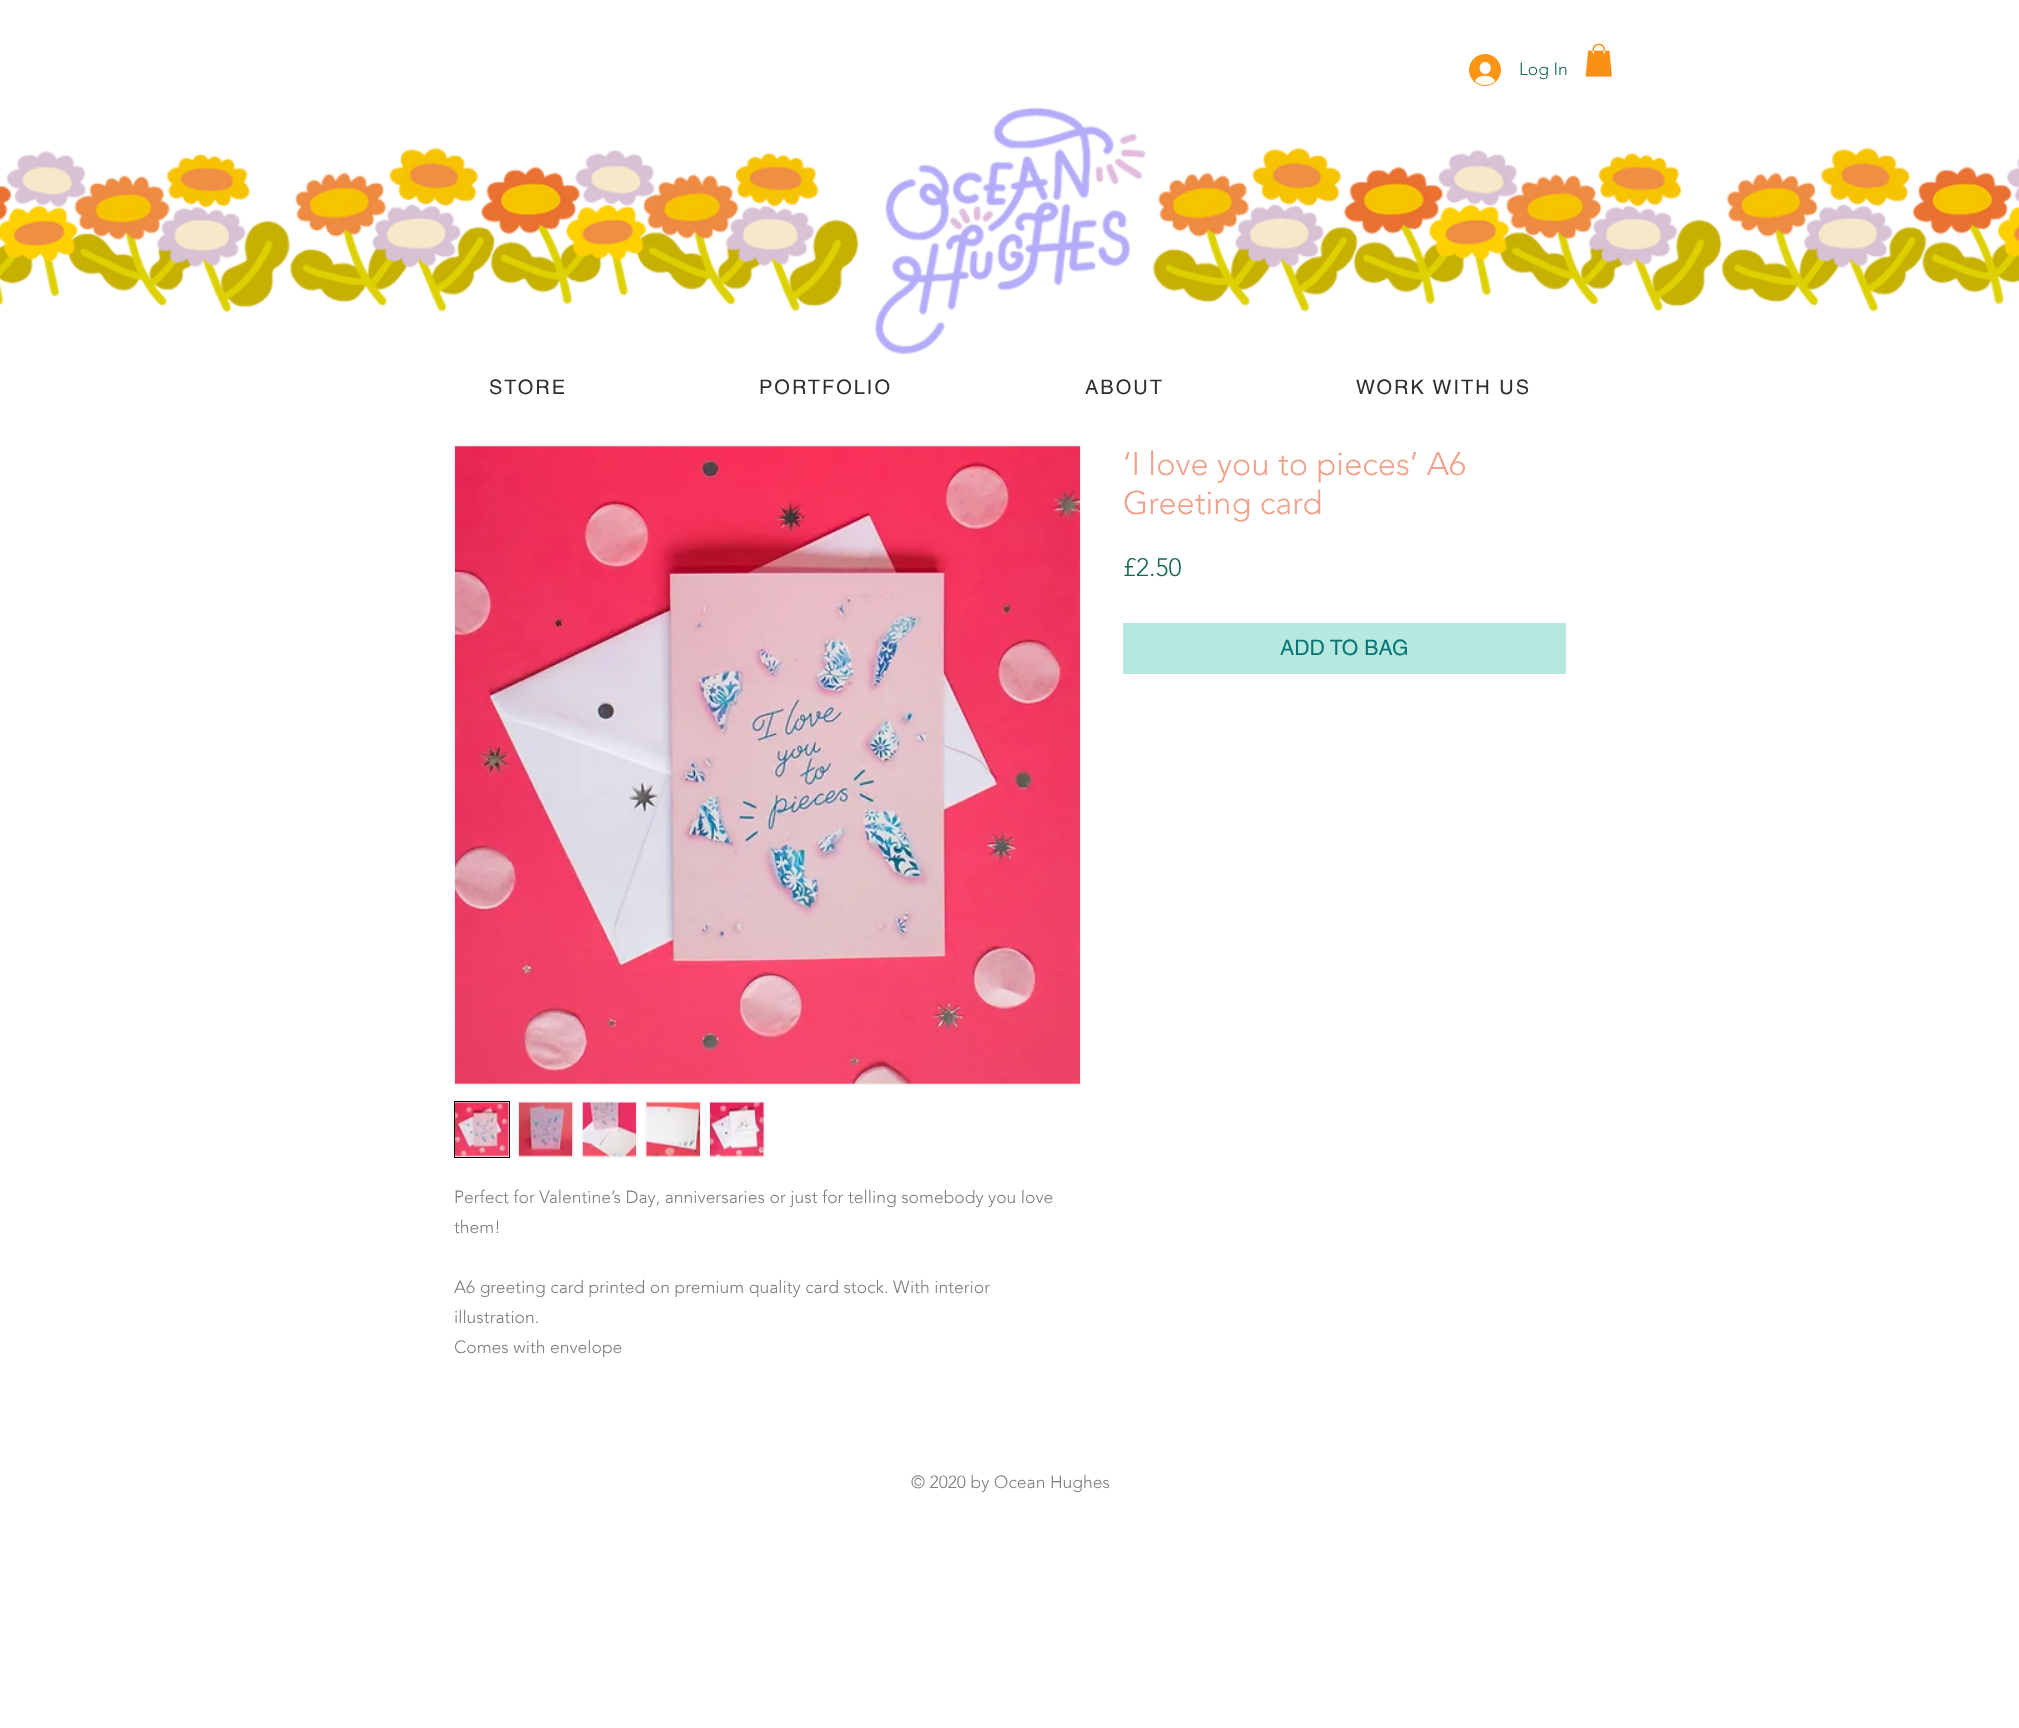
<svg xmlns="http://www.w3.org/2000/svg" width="2019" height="1728">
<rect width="100%" height="100%" fill="#fff"/>
<image x="1469" y="54" width="32" height="32" href="media/1.png"/>
<text x="1519" y="75" style="font-family:'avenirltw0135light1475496';font-size:17.5px;font-weight:300;fill:#13684f">Log In</text>
<image x="1585" y="43" width="27" height="34" href="media/2.png"/>
<image x="0" y="107" width="2019" height="248" href="media/3.png"/>
<text x="489" y="394" style="font-family:helvetica;font-size:20px;letter-spacing:2px;fill:#2f2e2e">STORE</text>
<text x="759" y="394" style="font-family:helvetica;font-size:20px;letter-spacing:2px;fill:#2f2e2e">PORTFOLIO</text>
<text x="1085" y="394" style="font-family:helvetica;font-size:20px;letter-spacing:2px;fill:#2f2e2e">ABOUT</text>
<text x="1356" y="394" style="font-family:helvetica;font-size:20px;letter-spacing:2px;fill:#2f2e2e">WORK WITH US</text>
<text x="1123" y="475" style="font-family:'avenirltw0135light1475496';font-size:32.5px;font-weight:300;fill:#efa189">‘I love you to pieces’ A6</text>
<text x="1123" y="514" style="font-family:'avenirltw0135light1475496';font-size:32.5px;font-weight:300;fill:#efa189">Greeting card</text>
<text x="1123" y="576" style="font-family:'avenirltw0135light1475496';font-size:25px;font-weight:300;fill:#13684f">£2.50</text>
<rect x="1123" y="623" width="443" height="51" fill="#b6e8df"/>
<text x="1280" y="655" style="font-family:helvetica;font-size:21.25px;fill:#087575">ADD TO BAG</text>
<rect x="454.5" y="445.5" width="626" height="639" fill="none" stroke="#f0f1f2"/>
<image x="455" y="446" width="625" height="638" href="media/4.png"/>
<rect x="454.5" y="1101.5" width="55" height="56" fill="none" stroke="#000"/>
<image x="455" y="1102" width="54" height="55" href="media/5.png"/>
<rect x="518.5" y="1101.5" width="55" height="56" fill="none" stroke="#f0f1f2"/>
<image x="518" y="1102" width="55" height="55" href="media/6.png"/>
<rect x="581.5" y="1101.5" width="56" height="56" fill="none" stroke="#f0f1f2"/>
<image x="582" y="1102" width="55" height="55" href="media/7.png"/>
<rect x="645.5" y="1101.5" width="55" height="56" fill="none" stroke="#f0f1f2"/>
<image x="646" y="1102" width="54" height="55" href="media/8.png"/>
<rect x="709.5" y="1101.5" width="55" height="56" fill="none" stroke="#f0f1f2"/>
<image x="710" y="1102" width="54" height="55" href="media/9.png"/>
<text x="454" y="1203" style="font-family:'avenirltw0135light1475496';font-size:17.5px;font-weight:300;fill:#7d7d7d">Perfect for Valentine’s Day, anniversaries or just for telling somebody you love</text>
<text x="454" y="1233" style="font-family:'avenirltw0135light1475496';font-size:17.5px;font-weight:300;fill:#7d7d7d">them!</text>
<text x="454" y="1293" style="font-family:'avenirltw0135light1475496';font-size:17.5px;font-weight:300;fill:#7d7d7d">A6 greeting card printed on premium quality card stock. With interior</text>
<text x="454" y="1323" style="font-family:'avenirltw0135light1475496';font-size:17.5px;font-weight:300;fill:#7d7d7d">illustration.</text>
<text x="454" y="1353" style="font-family:'avenirltw0135light1475496';font-size:17.5px;font-weight:300;fill:#7d7d7d">Comes with envelope</text>
<text x="911" y="1488" style="font-family:'avenirltw0135light1475496';font-size:17.5px;font-weight:300;fill:#7d7d7d">© 2020 by Ocean Hughes</text>
</svg>
